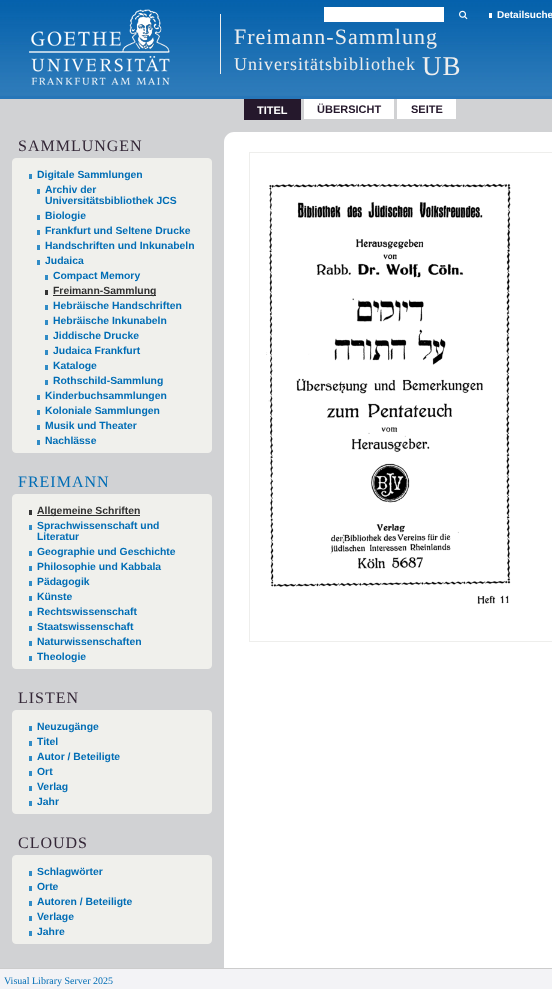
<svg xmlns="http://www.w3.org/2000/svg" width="552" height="989">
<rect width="100%" height="100%" fill="#2776b8"/>
<image x="0" y="0" width="552" height="96" href="media/1.png"/>
<image x="29" y="9" width="141" height="76" href="media/2.png"/>
<rect x="324" y="7" width="120" height="15" fill="#fff"/>
<image x="459" y="10" width="9" height="10" href="media/3.png"/>
<text x="497" y="18" style="font-family:Liberation Sans;font-size:10px;font-weight:bold;fill:#fff">Detailsuche</text>
<rect x="489" y="13" width="3" height="5" fill="#fff"/>
<rect x="220" y="14" width="1" height="60" fill="#eee"/>
<text x="234" y="44" style="font-family:Liberation Serif;font-size:22px;letter-spacing:1px;fill:#eee">Freimann-Sammlung</text>
<text x="234" y="70" style="font-family:Liberation Serif;font-size:18px;letter-spacing:1px;fill:#eee">Universitätsbibliothek</text>
<text x="422" y="75" style="font-family:Liberation Serif;font-size:27px;letter-spacing:1px;fill:#eee">UB</text>
<rect y="99" width="552" height="33" fill="#d1d2d4"/>
<rect x="244" y="99" width="57" height="21" fill="#25182c"/>
<text x="257" y="114" style="font-family:Liberation Sans;font-size:11px;font-weight:bold;fill:#fff">TITEL</text>
<rect x="304" y="99" width="90" height="20" fill="#fff"/>
<text x="317" y="113" style="font-family:Liberation Sans;font-size:11px;font-weight:bold;fill:#25182c">ÜBERSICHT</text>
<rect x="397" y="99" width="59" height="20" fill="#fff"/>
<text x="411" y="113" style="font-family:Liberation Sans;font-size:11px;font-weight:bold;fill:#25182c">SEITE</text>
<rect y="132" width="234" height="836" fill="#d1d2d4"/>
<text x="18" y="151" style="font-family:Liberation Serif;font-size:16px;letter-spacing:1px;fill:#332636">SAMMLUNGEN</text>
<rect x="12.5" y="158.5" width="199" height="294" rx="3.5" fill="#f0f0ec" stroke="#f0f0ec"/>
<rect x="29" y="174" width="3" height="5" fill="#318cc6"/>
<text x="37" y="178" style="font-family:Liberation Sans;font-size:10.4px;font-weight:bold;fill:#006db5">Digitale Sammlungen</text>
<rect x="37" y="189" width="3" height="5" fill="#318cc6"/>
<text x="45" y="193" style="font-family:Liberation Sans;font-size:10.4px;font-weight:bold;fill:#006db5">Archiv der</text>
<text x="45" y="204" style="font-family:Liberation Sans;font-size:10.4px;font-weight:bold;fill:#006db5">Universitätsbibliothek JCS</text>
<rect x="37" y="215" width="3" height="5" fill="#318cc6"/>
<text x="45" y="219" style="font-family:Liberation Sans;font-size:10.4px;font-weight:bold;fill:#006db5">Biologie</text>
<rect x="37" y="230" width="3" height="5" fill="#318cc6"/>
<text x="45" y="234" style="font-family:Liberation Sans;font-size:10.4px;font-weight:bold;fill:#006db5">Frankfurt und Seltene Drucke</text>
<rect x="37" y="245" width="3" height="5" fill="#318cc6"/>
<text x="45" y="249" style="font-family:Liberation Sans;font-size:10.4px;font-weight:bold;fill:#006db5">Handschriften und Inkunabeln</text>
<rect x="37" y="260" width="3" height="5" fill="#318cc6"/>
<text x="45" y="264" style="font-family:Liberation Sans;font-size:10.4px;font-weight:bold;fill:#006db5">Judaica</text>
<rect x="45" y="275" width="3" height="5" fill="#318cc6"/>
<text x="53" y="279" style="font-family:Liberation Sans;font-size:10.4px;font-weight:bold;fill:#006db5">Compact Memory</text>
<rect x="45" y="290" width="3" height="5" fill="#343434"/>
<rect x="53" y="295" width="103" height="1" fill="#303030"/>
<text x="53" y="294" style="font-family:Liberation Sans;font-size:10.4px;font-weight:bold;fill:#303030">Freimann-Sammlung</text>
<rect x="45" y="305" width="3" height="5" fill="#318cc6"/>
<text x="53" y="309" style="font-family:Liberation Sans;font-size:10.4px;font-weight:bold;fill:#006db5">Hebräische Handschriften</text>
<rect x="45" y="320" width="3" height="5" fill="#318cc6"/>
<text x="53" y="324" style="font-family:Liberation Sans;font-size:10.4px;font-weight:bold;fill:#006db5">Hebräische Inkunabeln</text>
<rect x="45" y="335" width="3" height="5" fill="#318cc6"/>
<text x="53" y="339" style="font-family:Liberation Sans;font-size:10.4px;font-weight:bold;fill:#006db5">Jiddische Drucke</text>
<rect x="45" y="350" width="3" height="5" fill="#318cc6"/>
<text x="53" y="354" style="font-family:Liberation Sans;font-size:10.4px;font-weight:bold;fill:#006db5">Judaica Frankfurt</text>
<rect x="45" y="365" width="3" height="5" fill="#318cc6"/>
<text x="53" y="369" style="font-family:Liberation Sans;font-size:10.4px;font-weight:bold;fill:#006db5">Kataloge</text>
<rect x="45" y="380" width="3" height="5" fill="#318cc6"/>
<text x="53" y="384" style="font-family:Liberation Sans;font-size:10.4px;font-weight:bold;fill:#006db5">Rothschild-Sammlung</text>
<rect x="37" y="395" width="3" height="5" fill="#318cc6"/>
<text x="45" y="399" style="font-family:Liberation Sans;font-size:10.4px;font-weight:bold;fill:#006db5">Kinderbuchsammlungen</text>
<rect x="37" y="410" width="3" height="5" fill="#318cc6"/>
<text x="45" y="414" style="font-family:Liberation Sans;font-size:10.4px;font-weight:bold;fill:#006db5">Koloniale Sammlungen</text>
<rect x="37" y="425" width="3" height="5" fill="#318cc6"/>
<text x="45" y="429" style="font-family:Liberation Sans;font-size:10.4px;font-weight:bold;fill:#006db5">Musik und Theater</text>
<rect x="37" y="440" width="3" height="5" fill="#318cc6"/>
<text x="45" y="444" style="font-family:Liberation Sans;font-size:10.4px;font-weight:bold;fill:#006db5">Nachlässe</text>
<text x="18" y="487" style="font-family:Liberation Serif;font-size:16px;letter-spacing:1px;fill:#006db5">FREIMANN</text>
<rect x="12.5" y="494.5" width="199" height="174" rx="3.5" fill="#f0f0ec" stroke="#f0f0ec"/>
<rect x="29" y="510" width="3" height="5" fill="#343434"/>
<rect x="37" y="515" width="103" height="1" fill="#303030"/>
<text x="37" y="514" style="font-family:Liberation Sans;font-size:10.4px;font-weight:bold;fill:#303030">Allgemeine Schriften</text>
<rect x="29" y="525" width="3" height="5" fill="#318cc6"/>
<text x="37" y="529" style="font-family:Liberation Sans;font-size:10.4px;font-weight:bold;fill:#006db5">Sprachwissenschaft und</text>
<text x="37" y="540" style="font-family:Liberation Sans;font-size:10.4px;font-weight:bold;fill:#006db5">Literatur</text>
<rect x="29" y="551" width="3" height="5" fill="#318cc6"/>
<text x="37" y="555" style="font-family:Liberation Sans;font-size:10.4px;font-weight:bold;fill:#006db5">Geographie und Geschichte</text>
<rect x="29" y="566" width="3" height="5" fill="#318cc6"/>
<text x="37" y="570" style="font-family:Liberation Sans;font-size:10.4px;font-weight:bold;fill:#006db5">Philosophie und Kabbala</text>
<rect x="29" y="581" width="3" height="5" fill="#318cc6"/>
<text x="37" y="585" style="font-family:Liberation Sans;font-size:10.4px;font-weight:bold;fill:#006db5">Pädagogik</text>
<rect x="29" y="596" width="3" height="5" fill="#318cc6"/>
<text x="37" y="600" style="font-family:Liberation Sans;font-size:10.4px;font-weight:bold;fill:#006db5">Künste</text>
<rect x="29" y="611" width="3" height="5" fill="#318cc6"/>
<text x="37" y="615" style="font-family:Liberation Sans;font-size:10.4px;font-weight:bold;fill:#006db5">Rechtswissenschaft</text>
<rect x="29" y="626" width="3" height="5" fill="#318cc6"/>
<text x="37" y="630" style="font-family:Liberation Sans;font-size:10.4px;font-weight:bold;fill:#006db5">Staatswissenschaft</text>
<rect x="29" y="641" width="3" height="5" fill="#318cc6"/>
<text x="37" y="645" style="font-family:Liberation Sans;font-size:10.4px;font-weight:bold;fill:#006db5">Naturwissenschaften</text>
<rect x="29" y="656" width="3" height="5" fill="#318cc6"/>
<text x="37" y="660" style="font-family:Liberation Sans;font-size:10.4px;font-weight:bold;fill:#006db5">Theologie</text>
<text x="18" y="703" style="font-family:Liberation Serif;font-size:16px;letter-spacing:1px;fill:#332636">LISTEN</text>
<rect x="12.5" y="710.5" width="199" height="103" rx="3.5" fill="#f0f0ec" stroke="#f0f0ec"/>
<rect x="29" y="726" width="3" height="5" fill="#318cc6"/>
<text x="37" y="730" style="font-family:Liberation Sans;font-size:10.4px;font-weight:bold;fill:#006db5">Neuzugänge</text>
<rect x="29" y="741" width="3" height="5" fill="#318cc6"/>
<text x="37" y="745" style="font-family:Liberation Sans;font-size:10.4px;font-weight:bold;fill:#006db5">Titel</text>
<rect x="29" y="756" width="3" height="5" fill="#318cc6"/>
<text x="37" y="760" style="font-family:Liberation Sans;font-size:10.4px;font-weight:bold;fill:#006db5">Autor / Beteiligte</text>
<rect x="29" y="771" width="3" height="5" fill="#318cc6"/>
<text x="37" y="775" style="font-family:Liberation Sans;font-size:10.4px;font-weight:bold;fill:#006db5">Ort</text>
<rect x="29" y="786" width="3" height="5" fill="#318cc6"/>
<text x="37" y="790" style="font-family:Liberation Sans;font-size:10.4px;font-weight:bold;fill:#006db5">Verlag</text>
<rect x="29" y="801" width="3" height="5" fill="#318cc6"/>
<text x="37" y="805" style="font-family:Liberation Sans;font-size:10.4px;font-weight:bold;fill:#006db5">Jahr</text>
<text x="18" y="848" style="font-family:Liberation Serif;font-size:16px;letter-spacing:1px;fill:#332636">CLOUDS</text>
<rect x="12.5" y="855.5" width="199" height="88" rx="3.5" fill="#f0f0ec" stroke="#f0f0ec"/>
<rect x="29" y="871" width="3" height="5" fill="#318cc6"/>
<text x="37" y="875" style="font-family:Liberation Sans;font-size:10.4px;font-weight:bold;fill:#006db5">Schlagwörter</text>
<rect x="29" y="886" width="3" height="5" fill="#318cc6"/>
<text x="37" y="890" style="font-family:Liberation Sans;font-size:10.4px;font-weight:bold;fill:#006db5">Orte</text>
<rect x="29" y="901" width="3" height="5" fill="#318cc6"/>
<text x="37" y="905" style="font-family:Liberation Sans;font-size:10.4px;font-weight:bold;fill:#006db5">Autoren / Beteiligte</text>
<rect x="29" y="916" width="3" height="5" fill="#318cc6"/>
<text x="37" y="920" style="font-family:Liberation Sans;font-size:10.4px;font-weight:bold;fill:#006db5">Verlage</text>
<rect x="29" y="931" width="3" height="5" fill="#318cc6"/>
<text x="37" y="935" style="font-family:Liberation Sans;font-size:10.4px;font-weight:bold;fill:#006db5">Jahre</text>
<path d="M234 132h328v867h-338v-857c0-5.5 4.5-10 10-10z" fill="#fff"/>
<rect x="249.5" y="152.5" width="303" height="489" fill="none" stroke="#eeeeec"/>
<image x="250" y="153" width="302" height="488" href="media/4.png"/>
<rect y="969" width="552" height="20" fill="#f3f3f6"/>
<rect y="968" width="552" height="1" fill="#ccc"/>
<text x="4" y="984" style="font-family:Liberation Serif;font-size:10px;fill:#006db5">Visual Library Server 2025</text>
</svg>
